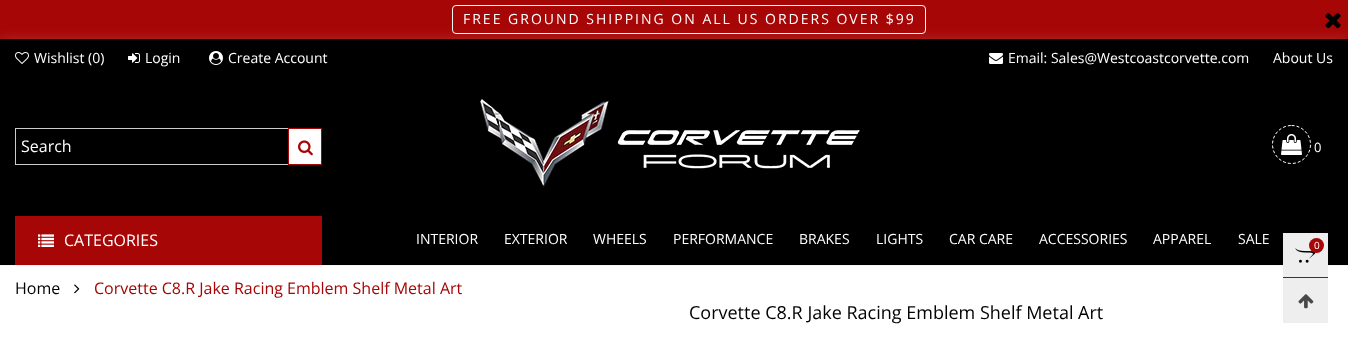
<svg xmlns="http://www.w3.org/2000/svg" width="1348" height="362">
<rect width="100%" height="100%" fill="#fff"/>
<rect width="1348" height="39" fill="#a60606"/>
<rect x="452.5" y="5.5" width="473" height="28" rx="3.5" fill="none" stroke="#fafafa"/>
<text x="463" y="24" style="font-family:Open Sans;font-size:14px;letter-spacing:2px;fill:#fff">FREE GROUND SHIPPING ON ALL US ORDERS OVER $99</text>
<image x="1325" y="13" width="16" height="16" href="media/1.png"/>
<rect y="265" width="1348" height="1" fill="#f5f5f5"/>
<image x="74" y="284" width="6" height="10" href="media/12.png"/>
<rect y="39" width="1348" height="226" fill="#ffffff26" filter="blur(6.5px)"/>
<rect y="39" width="1348" height="226" fill="#000"/>
<image x="15" y="52" width="14" height="12" href="media/2.png"/>
<text x="34" y="63" style="font-family:Open Sans;font-size:14px;fill:#fff">Wishlist (0)</text>
<image x="128" y="53" width="12" height="10" href="media/3.png"/>
<text x="145" y="63" style="font-family:Open Sans;font-size:14px;fill:#fff">Login</text>
<image x="209" y="51" width="14" height="14" href="media/4.png"/>
<text x="228" y="63" style="font-family:Open Sans;font-size:14px;fill:#fff">Create Account</text>
<image x="989" y="53" width="14" height="11" href="media/5.png"/>
<text x="1008" y="63" style="font-family:Open Sans;font-size:14px;fill:#fff">Email: Sales@Westcoastcorvette.com</text>
<text x="1273" y="63" style="font-family:Open Sans;font-size:14px;fill:#fff">About Us</text>
<rect x="15" y="128" width="273" height="1" fill="#ccc"/>
<rect x="15" y="164" width="273" height="1" fill="#ccc"/>
<rect x="15" y="128" width="1" height="37" fill="#ccc"/>
<text x="21" y="152" style="font-family:Open Sans;font-size:16px;fill:#fff">Search</text>
<rect x="288.5" y="128.5" width="33" height="36" fill="#fff" stroke="#a60606"/>
<image x="298" y="140" width="15" height="16" href="media/6.png"/>
<image x="480" y="98" width="380" height="90" href="media/7.png"/>
<path d="M1291.5 125.5c10.5 0 19 8.5 19 19c0 10.5-8.5 19-19 19c-10.5 0-19-8.5-19-19c0-10.5 8.5-19 19-19z" fill="none" stroke="#fff" stroke-dasharray="3 2"/>
<image x="1281" y="134" width="21" height="21" href="media/8.png"/>
<text x="1314" y="152" style="font-family:Open Sans;font-size:13px;fill:#fff">0</text>
<rect x="15" y="216" width="307" height="49" fill="#a60606"/>
<image x="38" y="234" width="16" height="13" href="media/9.png"/>
<text x="64" y="246" style="font-family:Open Sans;font-size:16px;fill:#fff">CATEGORIES</text>
<text x="416" y="244" style="font-family:Open Sans;font-size:14px;fill:#fff">INTERIOR</text>
<text x="504" y="244" style="font-family:Open Sans;font-size:14px;fill:#fff">EXTERIOR</text>
<text x="593" y="244" style="font-family:Open Sans;font-size:14px;fill:#fff">WHEELS</text>
<text x="673" y="244" style="font-family:Open Sans;font-size:14px;fill:#fff">PERFORMANCE</text>
<text x="799" y="244" style="font-family:Open Sans;font-size:14px;fill:#fff">BRAKES</text>
<text x="876" y="244" style="font-family:Open Sans;font-size:14px;fill:#fff">LIGHTS</text>
<text x="949" y="244" style="font-family:Open Sans;font-size:14px;fill:#fff">CAR CARE</text>
<text x="1039" y="244" style="font-family:Open Sans;font-size:14px;fill:#fff">ACCESSORIES</text>
<text x="1153" y="244" style="font-family:Open Sans;font-size:14px;fill:#fff">APPAREL</text>
<text x="1238" y="244" style="font-family:Open Sans;font-size:14px;fill:#fff">SALE</text>
<rect x="1283" y="233" width="45" height="90" fill="#eee"/>
<rect x="1283" y="277" width="45" height="1" fill="#a60606"/>
<image x="1295" y="248" width="21" height="15" href="media/10.png"/>
<circle cx="1316.5" cy="245.5" r="7.5" fill="#a60606"/>
<text x="1314" y="249" style="font-family:Open Sans;font-size:10px;fill:#fff">0</text>
<image x="1298" y="294" width="16" height="15" href="media/11.png"/>
<text x="15" y="294" style="font-family:Open Sans;font-size:16px;fill:#000">Home</text>
<text x="94" y="294" style="font-family:Open Sans;font-size:16px;fill:#a60606">Corvette C8.R Jake Racing Emblem Shelf Metal Art</text>
<text x="689" y="319" style="font-family:Open Sans;font-size:18px;fill:#000">Corvette C8.R Jake Racing Emblem Shelf Metal Art</text>
</svg>
